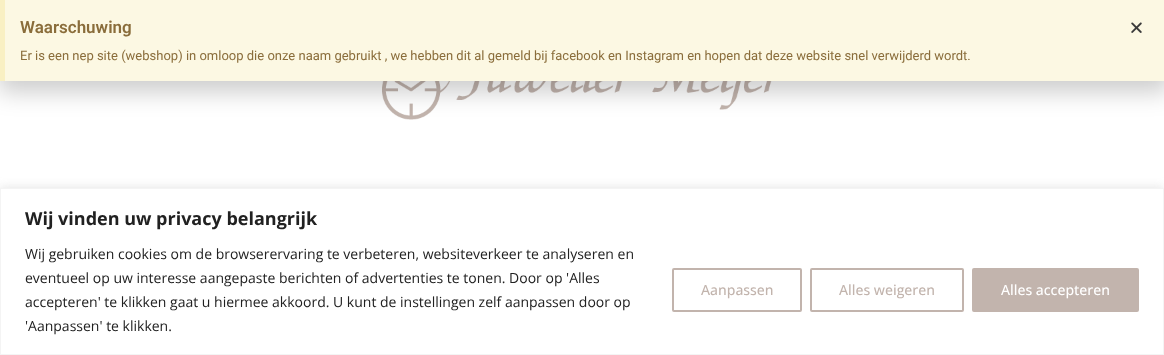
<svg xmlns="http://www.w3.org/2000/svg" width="1164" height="355">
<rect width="100%" height="100%" fill="#fff"/>
<image x="382" y="81" width="390" height="39" href="media/2.png"/>
<rect x="-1" y="5" width="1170" height="87" fill="#00000033" filter="blur(11.5px)"/>
<rect x="5" width="1159" height="81" fill="#fcf8e3"/>
<rect width="5" height="81" fill="#f9f0c3"/>
<text x="20" y="33" style="font-family:Roboto;font-size:17px;font-weight:600;fill:#8a6d3b">Waarschuwing</text>
<text x="20" y="60" style="font-family:Roboto;font-size:13px;fill:#8a6d3b">Er is een nep site (webshop) in omloop die onze naam gebruikt , we hebben dit al gemeld bij facebook en Instagram en hopen dat deze website snel verwijderd wordt.</text>
<image x="1131" y="22" width="11" height="11" href="media/1.png"/>
<rect y="187" width="1164" height="167" fill="#acabab4d" filter="blur(5px)"/>
<rect x="0.5" y="188.5" width="1163" height="166" fill="#fff" stroke="#f4f4f4"/>
<text x="25" y="225" style="font-family:Open Sans;font-size:18px;font-weight:bold;fill:#212121">Wij vinden uw privacy belangrijk</text>
<text x="25" y="259" style="font-family:Open Sans;font-size:14px;fill:#212121">Wij gebruiken cookies om de browserervaring te verbeteren, websiteverkeer te analyseren en</text>
<text x="25" y="283" style="font-family:Open Sans;font-size:14px;fill:#212121">eventueel op uw interesse aangepaste berichten of advertenties te tonen. Door op 'Alles</text>
<text x="25" y="307" style="font-family:Open Sans;font-size:14px;fill:#212121">accepteren' te klikken gaat u hiermee akkoord. U kunt de instellingen zelf aanpassen door op</text>
<text x="25" y="331" style="font-family:Open Sans;font-size:14px;fill:#212121">'Aanpassen' te klikken.</text>
<rect x="673" y="269" width="128" height="42" rx="1" fill="none" stroke="#c2b4ad" stroke-width="2"/>
<text x="701" y="295" style="font-family:Open Sans;font-size:14px;font-weight:500;fill:#c2b4ad">Aanpassen</text>
<rect x="811" y="269" width="152" height="42" rx="1" fill="none" stroke="#c2b4ad" stroke-width="2"/>
<text x="839" y="295" style="font-family:Open Sans;font-size:14px;font-weight:500;fill:#c2b4ad">Alles weigeren</text>
<rect x="973" y="269" width="165" height="42" rx="1" fill="#c2b4ad" stroke="#c2b4ad" stroke-width="2"/>
<text x="1001" y="295" style="font-family:Open Sans;font-size:14px;font-weight:500;fill:#fff">Alles accepteren</text>
</svg>
